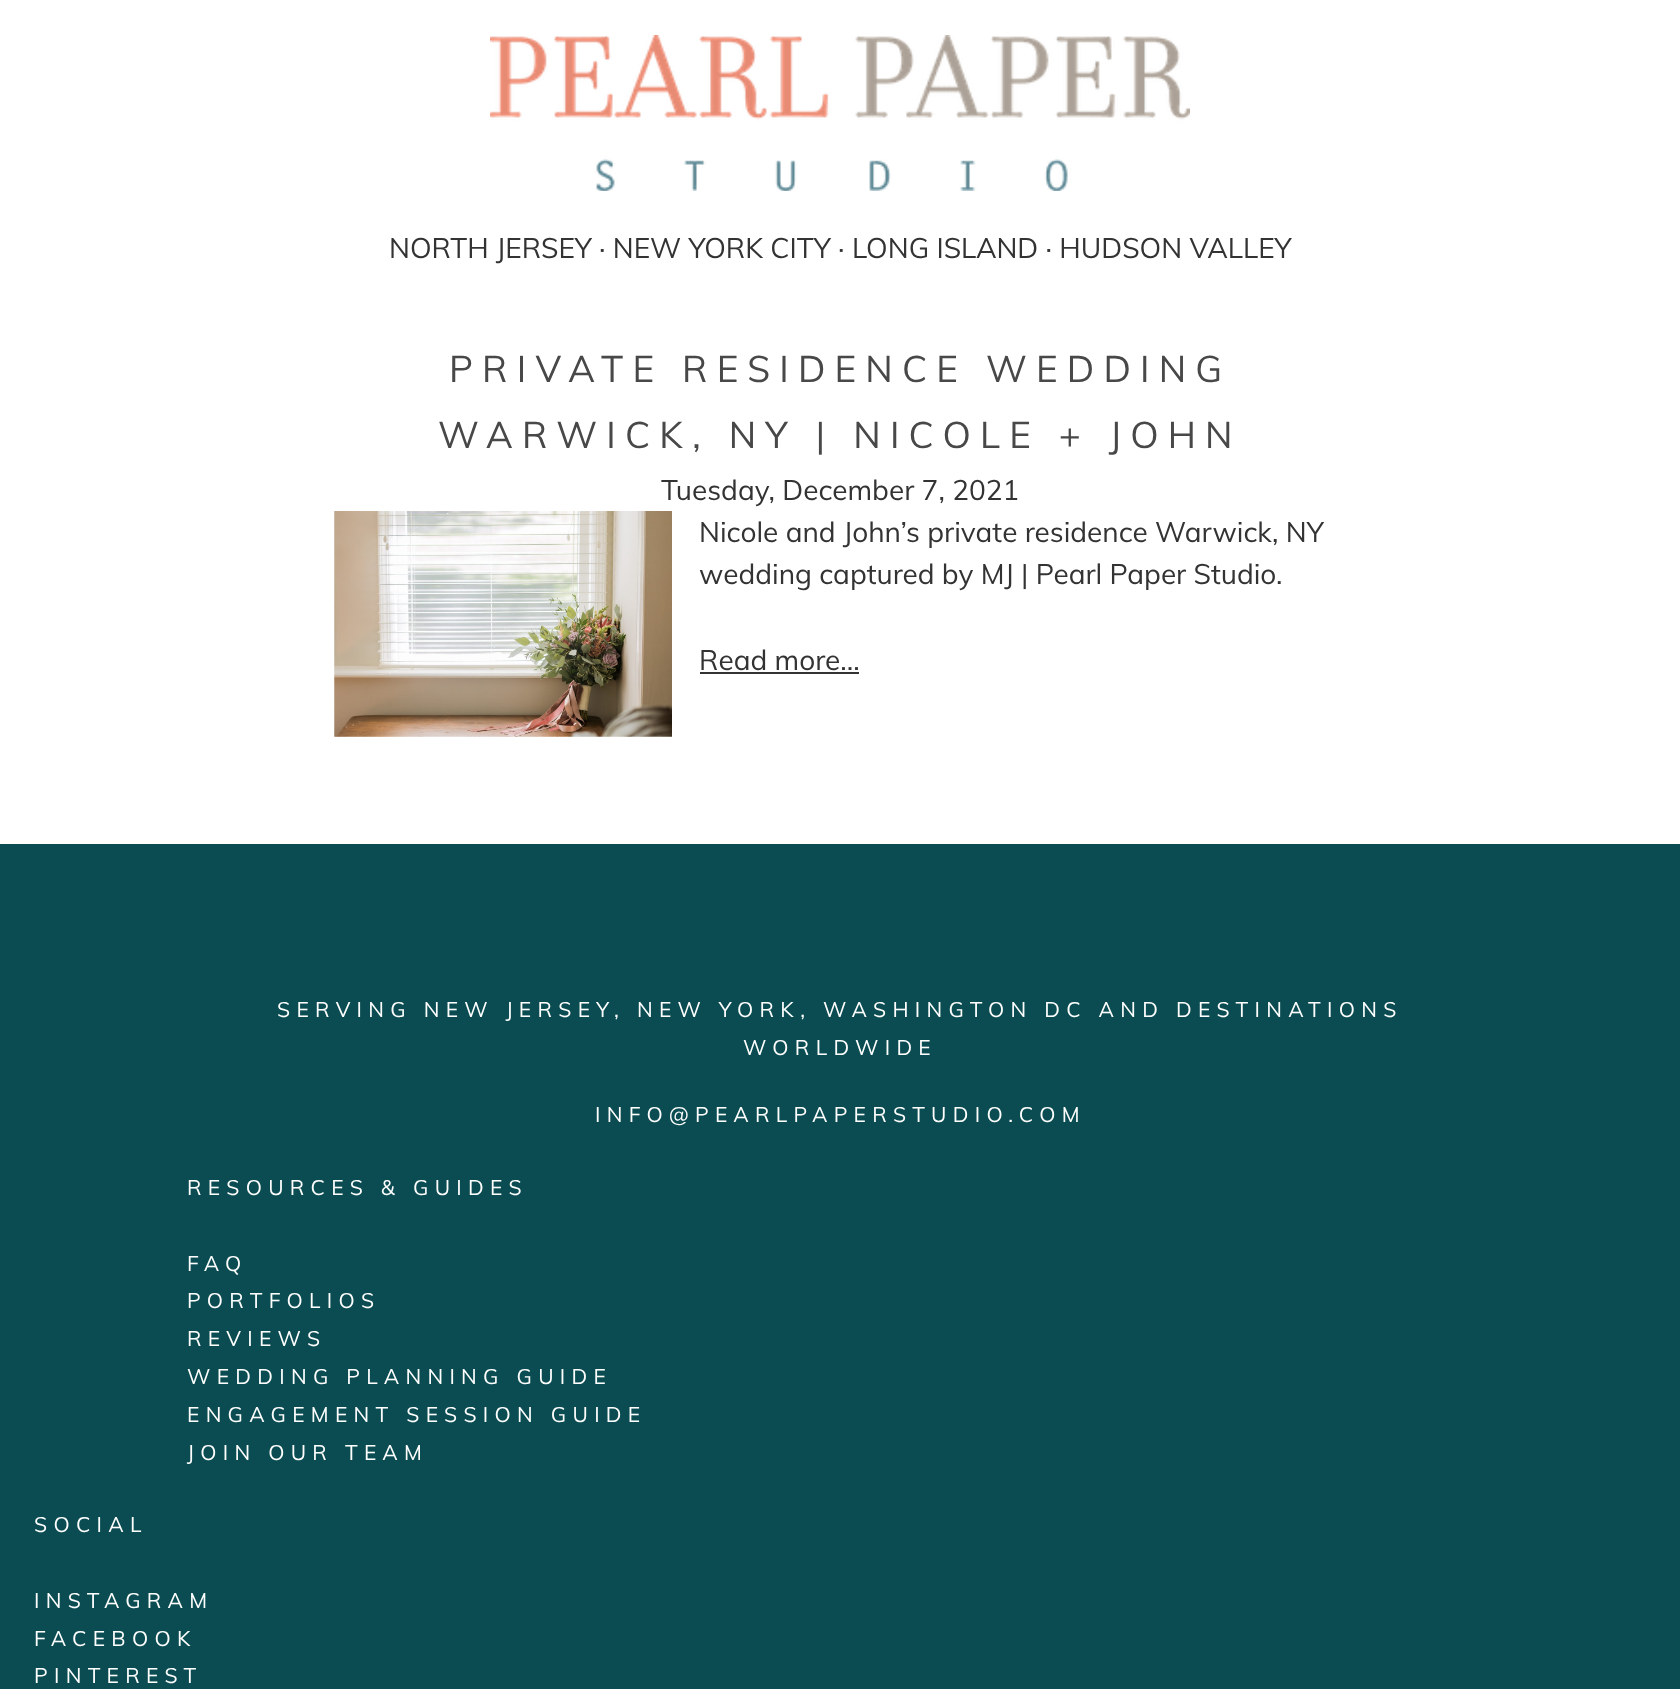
<svg xmlns="http://www.w3.org/2000/svg" width="1680" height="1689">
<rect width="100%" height="100%" fill="#fff"/>
<image x="490" y="35" width="700" height="156" href="media/1.png"/>
<text x="389" y="258" style="font-family:Muli;font-size:28px;fill:#333">NORTH JERSEY · NEW YORK CITY · LONG ISLAND · HUDSON VALLEY</text>
<text x="449" y="382" style="font-family:Muli;font-size:36.75px;letter-spacing:9.2px;fill:#484848">PRIVATE RESIDENCE WEDDING</text>
<text x="438" y="448" style="font-family:Muli;font-size:36.75px;letter-spacing:9.2px;fill:#484848">WARWICK, NY | NICOLE + JOHN</text>
<text x="661" y="500" style="font-family:Muli;font-size:28px;fill:#333">Tuesday, December 7, 2021</text>
<image x="334" y="511" width="338" height="226" href="media/2.png"/>
<text x="699" y="542" style="font-family:Muli;font-size:28px;fill:#333">Nicole and John’s private residence Warwick, NY</text>
<text x="699" y="584" style="font-family:Muli;font-size:28px;fill:#333">wedding captured by MJ | Pearl Paper Studio.</text>
<text x="699" y="670" style="font-family:Muli;font-size:28px;fill:#333">Read more...</text>
<rect x="700" y="672" width="159" height="2" fill="#333"/>
<rect y="844" width="1680" height="845" fill="#0b4c52"/>
<text x="277" y="1017" style="font-family:Muli;font-size:21px;letter-spacing:6.3px;fill:#fff">SERVING NEW JERSEY, NEW YORK, WASHINGTON DC AND DESTINATIONS</text>
<text x="743" y="1055" style="font-family:Muli;font-size:21px;letter-spacing:6.3px;fill:#fff">WORLDWIDE</text>
<text x="595" y="1122" style="font-family:Muli;font-size:21px;letter-spacing:6.3px;fill:#fff">INFO@PEARLPAPERSTUDIO.COM</text>
<text x="187" y="1195" style="font-family:Muli;font-size:21px;letter-spacing:6.3px;fill:#fff">RESOURCES &amp; GUIDES</text>
<text x="187" y="1271" style="font-family:Muli;font-size:21px;letter-spacing:6.3px;fill:#fff">FAQ</text>
<text x="187" y="1308" style="font-family:Muli;font-size:21px;letter-spacing:6.3px;fill:#fff">PORTFOLIOS</text>
<text x="187" y="1346" style="font-family:Muli;font-size:21px;letter-spacing:6.3px;fill:#fff">REVIEWS</text>
<text x="187" y="1384" style="font-family:Muli;font-size:21px;letter-spacing:6.3px;fill:#fff">WEDDING PLANNING GUIDE</text>
<text x="187" y="1422" style="font-family:Muli;font-size:21px;letter-spacing:6.3px;fill:#fff">ENGAGEMENT SESSION GUIDE</text>
<text x="187" y="1460" style="font-family:Muli;font-size:21px;letter-spacing:6.3px;fill:#fff">JOIN OUR TEAM</text>
<text x="34" y="1532" style="font-family:Muli;font-size:21px;letter-spacing:6.3px;fill:#fff">SOCIAL</text>
<text x="34" y="1608" style="font-family:Muli;font-size:21px;letter-spacing:6.3px;fill:#fff">INSTAGRAM</text>
<text x="34" y="1646" style="font-family:Muli;font-size:21px;letter-spacing:6.3px;fill:#fff">FACEBOOK</text>
<text x="34" y="1683" style="font-family:Muli;font-size:21px;letter-spacing:6.3px;fill:#fff">PINTEREST</text>
</svg>
